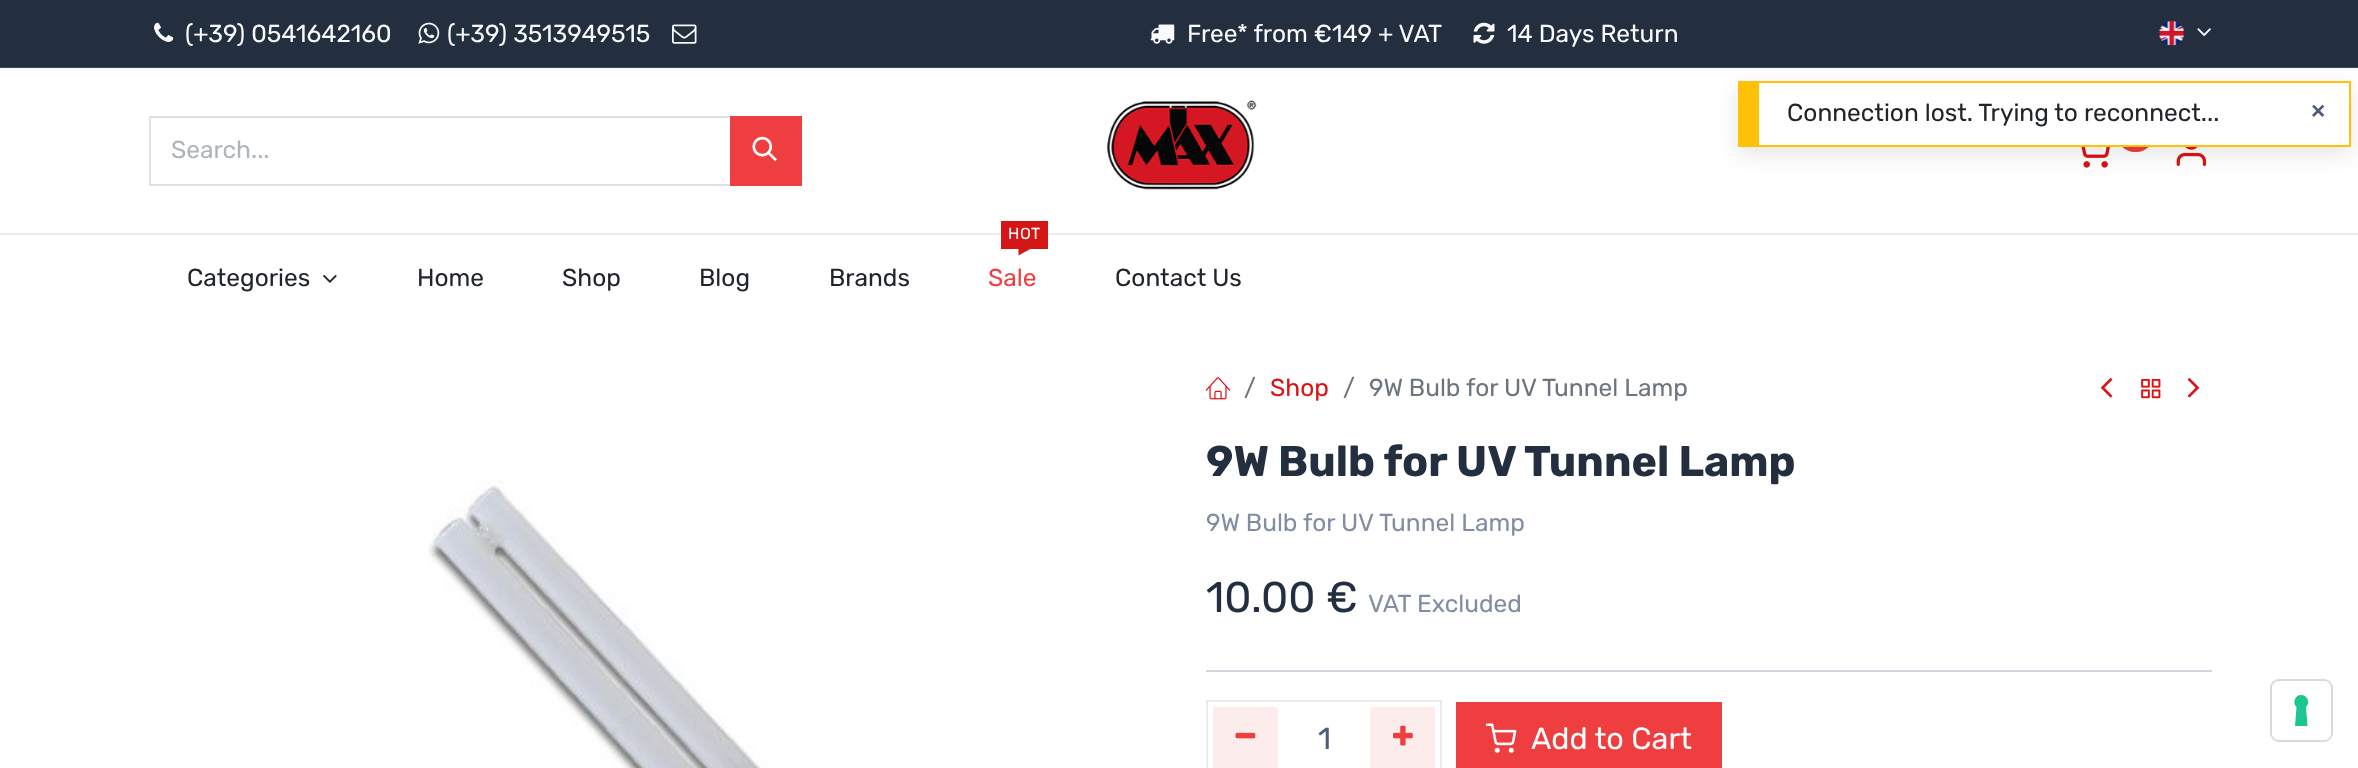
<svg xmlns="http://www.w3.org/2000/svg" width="2358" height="768">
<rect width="100%" height="100%" fill="#fff"/>
<rect width="2358" height="67" fill="#232f3e"/>
<rect y="67" width="2358" height="1" fill="#3d4855"/>
<image x="154" y="22" width="20" height="20" href="media/1.png"/>
<text x="185" y="42" style="font-family:Rubik;font-size:24.5px;fill:#f9fafe">(+39) 0541642160</text>
<image x="418" y="22" width="22" height="22" href="media/2.png"/>
<text x="447" y="42" style="font-family:Rubik;font-size:24.5px;fill:#f9fafe">(+39) 3513949515</text>
<image x="672" y="24" width="25" height="20" href="media/3.png"/>
<image x="1150" y="24" width="25" height="20" href="media/4.png"/>
<text x="1187" y="42" style="font-family:Rubik;font-size:24.5px;fill:#f9fafe">Free* from €149 + VAT</text>
<image x="1473" y="22" width="22" height="22" href="media/5.png"/>
<text x="1507" y="42" style="font-family:Rubik;font-size:24.5px;fill:#f9fafe">14 Days Return</text>
<image x="2159" y="21" width="26" height="25" href="media/6.png"/>
<image x="2197" y="28" width="14" height="9" href="media/7.png"/>
<rect y="233" width="2358" height="2" fill="#eaebef"/>
<rect x="150" y="117" width="581" height="68" fill="none" stroke="#dee2e6" stroke-width="2"/>
<text x="171" y="158" style="font-family:Rubik;font-size:24.5px;fill:#adb5bd">Search...</text>
<rect x="730" y="116" width="72" height="70" fill="#ef3e40"/>
<image x="752" y="136" width="25" height="26" href="media/8.png"/>
<image x="1107" y="100" width="150" height="90" href="media/9.png"/>
<rect x="2118" y="119" width="35" height="33" rx="16.5" fill="#ef3e40"/>
<image x="2081" y="147" width="29" height="21" href="media/10.png"/>
<image x="2176" y="147" width="31" height="19" href="media/11.png"/>
<text x="187" y="286" style="font-family:Rubik;font-size:24.5px;fill:#212529">Categories</text>
<image x="323" y="275" width="14" height="8" href="media/12.png"/>
<text x="417" y="286" style="font-family:Rubik;font-size:24.5px;fill:#212529">Home</text>
<text x="562" y="286" style="font-family:Rubik;font-size:24.5px;fill:#212529">Shop</text>
<text x="699" y="286" style="font-family:Rubik;font-size:24.5px;fill:#212529">Blog</text>
<text x="829" y="286" style="font-family:Rubik;font-size:24.5px;fill:#212529">Brands</text>
<rect x="1001" y="221" width="47" height="28" fill="#d41616"/>
<text x="1008" y="239" style="font-family:Rubik;font-size:16px;letter-spacing:0.5px;fill:#fff">HOT</text>
<path d="M1018.5 248.5h12.5l-12.5 7z" fill="#d41616"/>
<text x="988" y="286" style="font-family:Rubik;font-size:24.5px;fill:#ef3e40">Sale</text>
<text x="1115" y="286" style="font-family:Rubik;font-size:24.5px;fill:#212529">Contact Us</text>
<image x="428" y="480" width="340" height="288" href="media/13.png"/>
<image x="1205" y="377" width="26" height="23" href="media/14.png"/>
<text x="1244" y="396" style="font-family:Rubik;font-size:24.5px;fill:#6c757d">/</text>
<text x="1270" y="396" style="font-family:Rubik;font-size:24.5px;fill:#dd1215">Shop</text>
<text x="1343" y="396" style="font-family:Rubik;font-size:24.5px;fill:#6c757d">/</text>
<text x="1369" y="396" style="font-family:Rubik;font-size:24.5px;fill:#6c757d">9W Bulb for UV Tunnel Lamp</text>
<image x="2100" y="378" width="13" height="20" href="media/15.png"/>
<image x="2141" y="378" width="20" height="21" href="media/16.png"/>
<image x="2187" y="378" width="13" height="20" href="media/17.png"/>
<text x="1206" y="476" style="font-family:Rubik;font-size:42.9px;font-weight:bold;fill:#232f3e">9W Bulb for UV Tunnel Lamp</text>
<text x="1206" y="531" style="font-family:Rubik;font-size:24.5px;fill:#828ca3">9W Bulb for UV Tunnel Lamp</text>
<text x="1206" y="612" style="font-family:Rubik;font-size:42.9px;fill:#232f3e">10.00 €</text>
<text x="1368" y="612" style="font-family:Rubik;font-size:24.5px;fill:#828ca3">VAT Excluded</text>
<rect x="1206" y="670" width="1006" height="2" fill="#d3d6de"/>
<rect x="1207" y="701" width="234" height="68" fill="none" stroke="#e9ecef" stroke-width="2"/>
<rect x="1213" y="707" width="65" height="61" fill="#fdecec"/>
<image x="1235" y="732" width="21" height="7" href="media/18.png"/>
<text x="1318" y="749" style="font-family:Rubik;font-size:30.5px;fill:#4d5b7c">1</text>
<rect x="1370" y="707" width="65" height="61" fill="#fdecec"/>
<image x="1393" y="725" width="20" height="21" href="media/19.png"/>
<rect x="1456" y="702" width="266" height="66" fill="#ef3e40"/>
<image x="1485" y="723" width="32" height="30" href="media/20.png"/>
<text x="1531" y="749" style="font-family:Rubik;font-size:30.5px;fill:#fff">Add to Cart</text>
<rect x="1738" y="88" width="612" height="66" fill="#0000001a" filter="blur(10.5px)"/>
<rect x="1759" y="83" width="590" height="62" fill="#fff"/>
<rect x="1759" y="81" width="591" height="2" fill="#ffc107"/>
<rect x="2349" y="81" width="2" height="66" fill="#ffc107"/>
<rect x="1759" y="145" width="591" height="2" fill="#ffc107"/>
<rect x="1738" y="81" width="21" height="66" fill="#ffc107"/>
<text x="1787" y="121" style="font-family:Rubik;font-size:24.5px;fill:#212529">Connection lost. Trying to reconnect...</text>
<text x="2311" y="119" style="font-family:Liberation Sans;font-size:24.5px;font-weight:bold;fill:#4d5b7c">×</text>
<rect x="2271" y="680" width="61" height="61" rx="8" fill="none" stroke="#d9d9d9" stroke-width="2"/>
<rect x="2272" y="681" width="59" height="59" rx="7" fill="#fff"/>
<path d="M2301 695c6.5 0 9.5 8 5 12l1.5 19h-12.5l1.5-19c-4.5-4-1.5-12 4.5-12z" fill="#1cc691" fill-rule="evenodd"/>
</svg>
